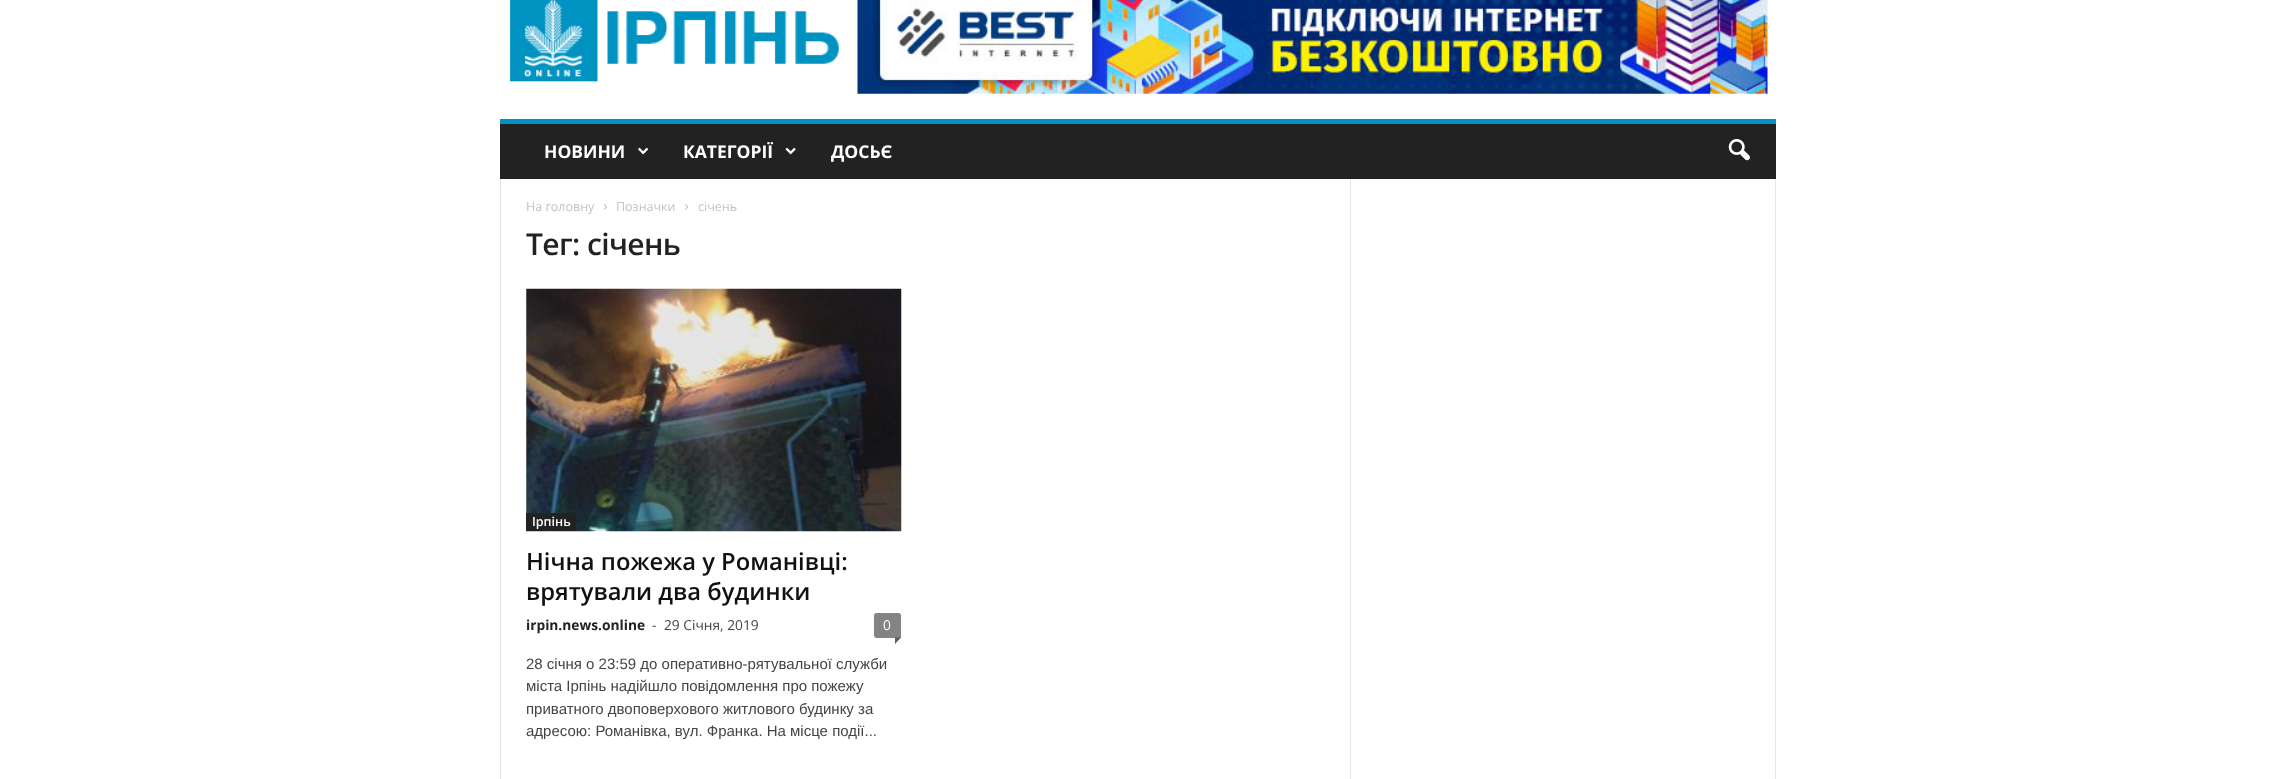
<svg xmlns="http://www.w3.org/2000/svg" width="2274" height="779">
<rect width="100%" height="100%" fill="#fff"/>
<image x="509" y="0" width="330" height="82" href="media/1.png"/>
<image x="857" y="0" width="911" height="94" href="media/2.png"/>
<rect x="500" y="124" width="1276" height="55" fill="#222"/>
<rect x="500" y="119" width="1276" height="5" fill="#0092c1"/>
<text x="544" y="158" style="font-family:Open Sans;font-size:17.5px;font-weight:bold;fill:#fff">НОВИНИ</text>
<image x="638" y="147" width="11" height="8" href="media/3.png"/>
<text x="683" y="158" style="font-family:Open Sans;font-size:17.5px;font-weight:bold;fill:#fff">КАТЕГОРІЇ</text>
<image x="785" y="147" width="11" height="8" href="media/4.png"/>
<text x="831" y="158" style="font-family:Open Sans;font-size:17.5px;font-weight:bold;fill:#fff">ДОСЬЄ</text>
<image x="1728" y="139" width="22" height="22" href="media/5.png"/>
<rect x="500" y="179" width="1" height="600" fill="#e6e6e6"/>
<text x="526" y="211" style="font-family:Open Sans;font-size:12.5px;fill:#c3c3c3">На головну</text>
<image x="603" y="204" width="4" height="6" href="media/6.png"/>
<text x="616" y="211" style="font-family:Open Sans;font-size:12.5px;fill:#c3c3c3">Позначки</text>
<image x="685" y="204" width="4" height="6" href="media/7.png"/>
<text x="698" y="211" style="font-family:Open Sans;font-size:12.5px;fill:#c3c3c3">січень</text>
<text x="526" y="255" style="font-family:Open Sans;font-size:30px;font-weight:600;letter-spacing:-0.6px;fill:#222">Тег: січень</text>
<image x="526" y="288" width="376" height="244" href="media/8.png"/>
<path d="M526 513h46c2 0 4 2 4 4v14h-50z" fill="#222"/>
<text x="532" y="526" style="font-family:Open Sans;font-size:12.5px;font-weight:600;fill:#fff">Ірпінь</text>
<text x="526" y="570" style="font-family:Open Sans;font-size:23.75px;font-weight:600;fill:#111">Нічна пожежа у Романівці:</text>
<text x="526" y="600" style="font-family:Open Sans;font-size:23.75px;font-weight:600;fill:#111">врятували два будинки</text>
<text x="526" y="630" style="font-family:Open Sans;font-size:13.75px;font-weight:bold;fill:#222">irpin.news.online</text>
<text x="652" y="630" style="font-family:Open Sans;font-size:13.75px;fill:#444">-</text>
<text x="664" y="630" style="font-family:Open Sans;font-size:13.75px;fill:#444">29 Січня, 2019</text>
<path d="M876.5 613h22c1.5 0 2.5 1 2.5 2.5v22.5h-24.5c-1.5 0-2.5-1-2.5-2.5v-20c0-1.5 1-2.5 2.5-2.5z" fill="#848484"/>
<text x="883" y="630" style="font-family:Open Sans;font-size:13.75px;fill:#fff">0</text>
<path d="M895 637.5h6l-6 6.5z" fill="#5b5b5b"/>
<text x="526" y="669" style="font-family:Liberation Sans;font-size:15px;fill:#444">28 січня о 23:59 до оперативно-рятувальної служби</text>
<text x="526" y="691" style="font-family:Liberation Sans;font-size:15px;fill:#444">міста Ірпінь надійшло повідомлення про пожежу</text>
<text x="526" y="714" style="font-family:Liberation Sans;font-size:15px;fill:#444">приватного двоповерхового житлового будинку за</text>
<text x="526" y="736" style="font-family:Liberation Sans;font-size:15px;fill:#444">адресою: Романівка, вул. Франка. На місце події...</text>
<rect x="1350" y="179" width="1" height="600" fill="#e6e6e6"/>
<rect x="1775" y="179" width="1" height="600" fill="#e6e6e6"/>
</svg>
